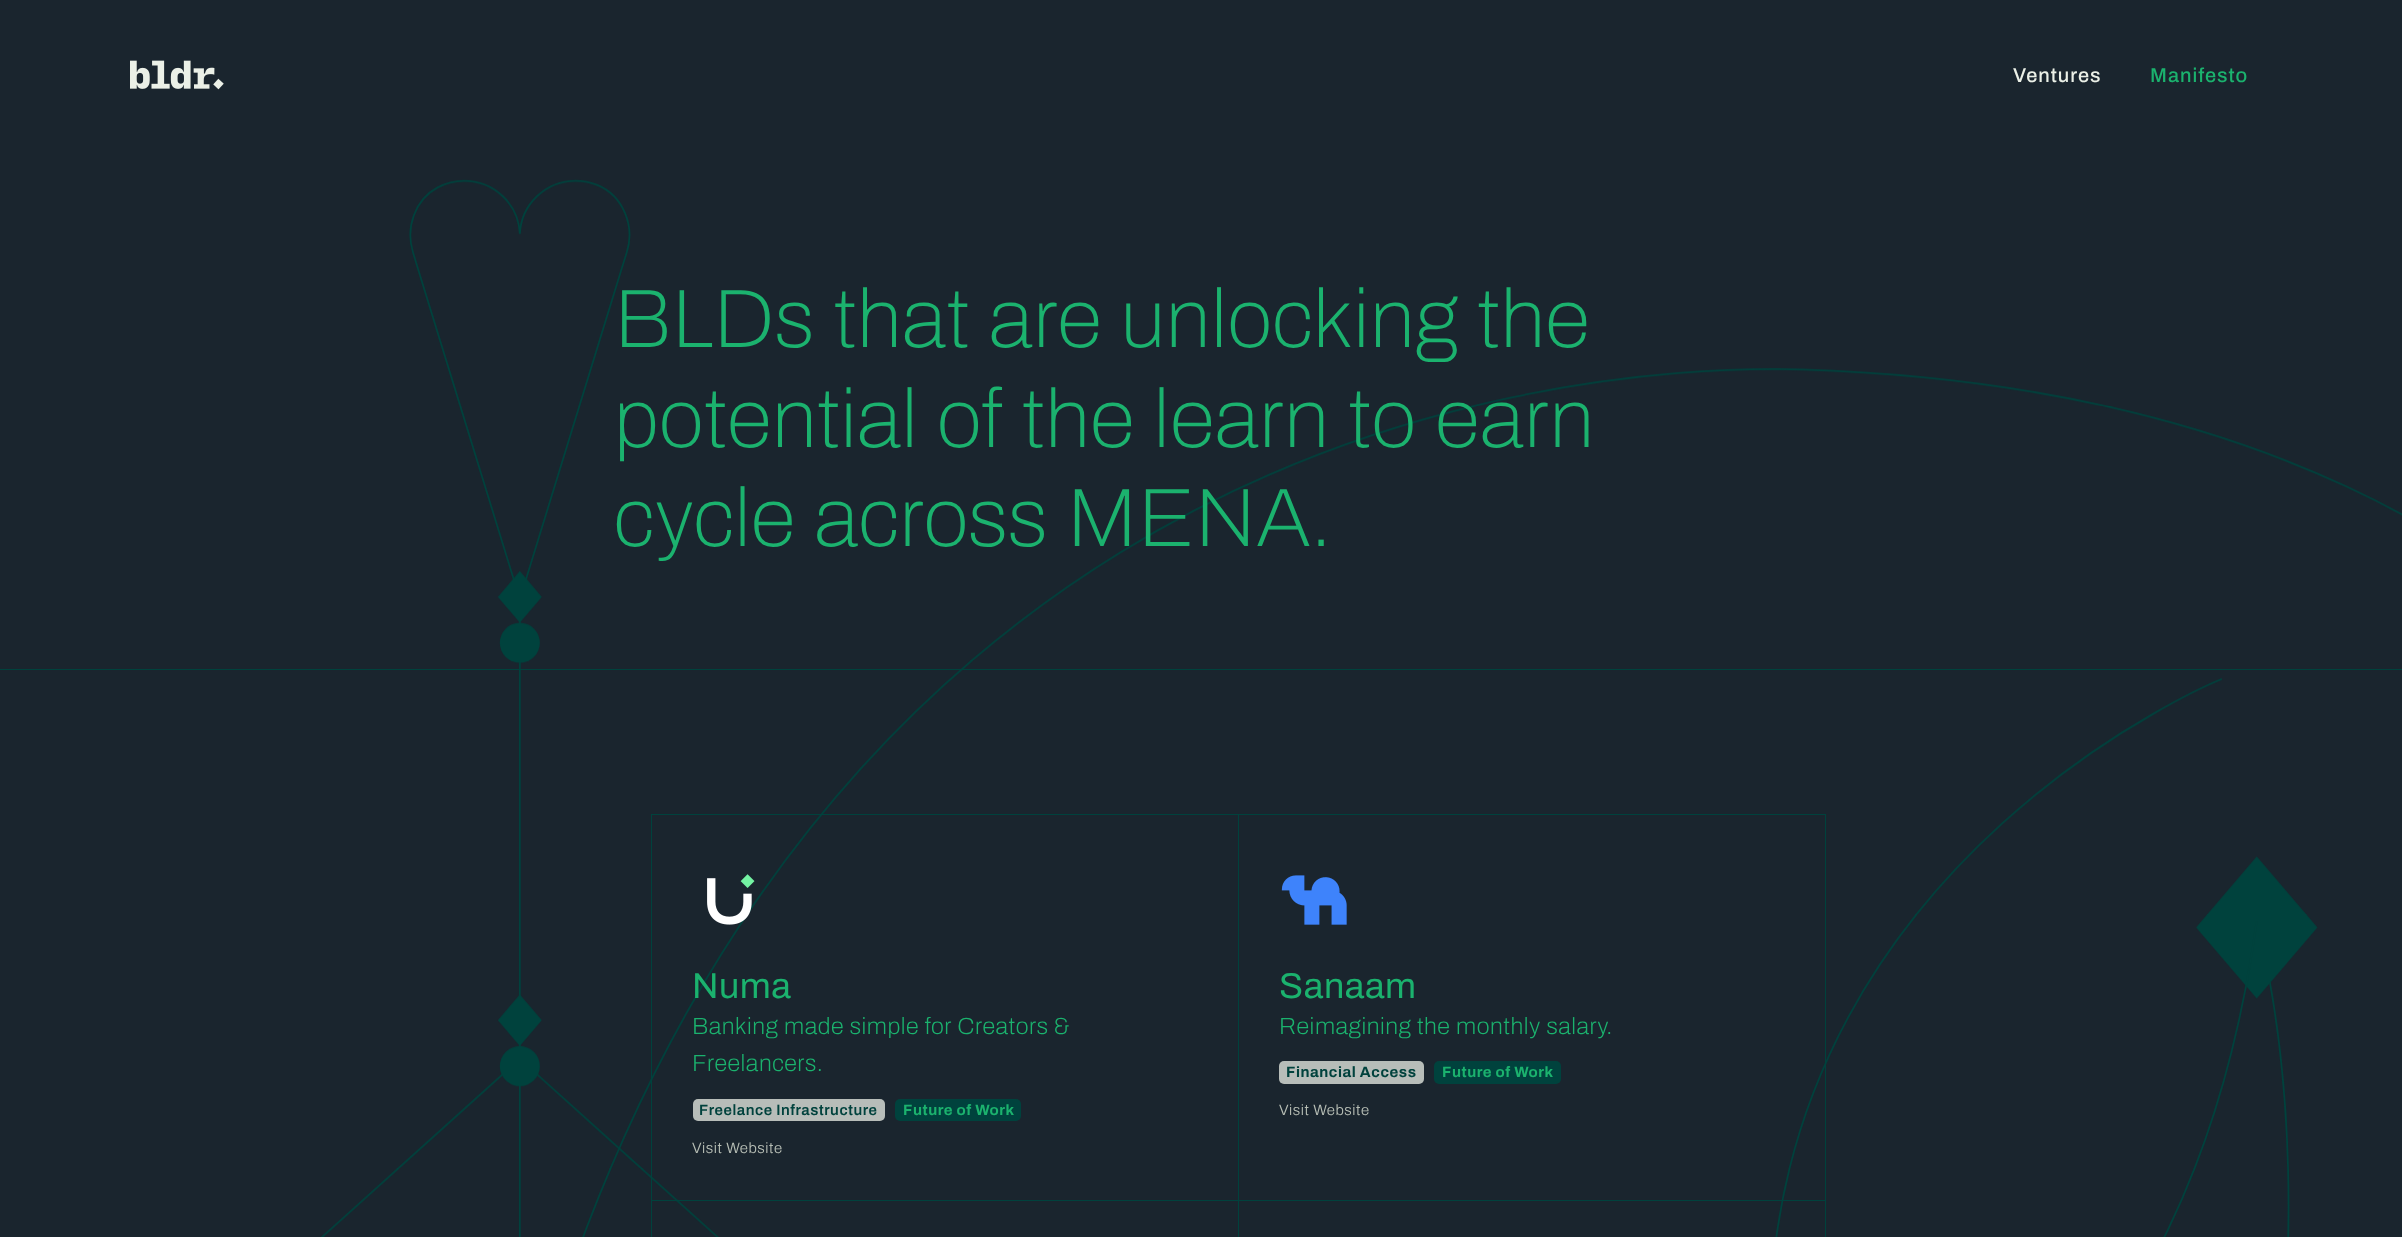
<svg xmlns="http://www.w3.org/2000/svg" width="2402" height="1237">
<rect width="100%" height="100%" fill="#1a252e"/>
<image x="130" y="60" width="94" height="30" href="media/1.png"/>
<text x="2013" y="82" style="font-family:Archivo;font-size:20px;font-weight:500;letter-spacing:1px;fill:#ebf0e7">Ventures</text>
<text x="2150" y="82" style="font-family:Archivo;font-size:20px;font-weight:500;letter-spacing:1px;fill:#1bb26e">Manifesto</text>
<image x="321" y="179" width="2081" height="1058" href="media/2.png"/>
<rect y="669" width="2402" height="1" fill="#00423d"/>
<text x="614" y="347" style="font-family:Archivo;font-size:82.75px;font-weight:100;letter-spacing:0.55px;fill:#1bb26e">BLDs that are unlocking the</text>
<text x="614" y="447" style="font-family:Archivo;font-size:82.75px;font-weight:100;letter-spacing:0.55px;fill:#1bb26e">potential of the learn to earn</text>
<text x="614" y="546" style="font-family:Archivo;font-size:82.75px;font-weight:100;letter-spacing:0.55px;fill:#1bb26e">cycle across MENA.</text>
<rect x="1825" y="814" width="1" height="423" fill="#00423d"/>
<rect x="651" y="814" width="1174" height="1" fill="#00423d"/>
<rect x="651" y="814" width="1" height="386" fill="#00423d"/>
<image x="707" y="874" width="48" height="51" href="media/3.png"/>
<text x="692" y="998" style="font-family:Archivo;font-size:36px;letter-spacing:0.55px;fill:#1bb26e">Numa</text>
<text x="692" y="1034" style="font-family:Archivo;font-size:23.4px;font-weight:200;letter-spacing:0.55px;fill:#1bb26e">Banking made simple for Creators &amp;</text>
<text x="692" y="1071" style="font-family:Archivo;font-size:23.4px;font-weight:200;letter-spacing:0.55px;fill:#1bb26e">Freelancers.</text>
<rect x="693" y="1099" width="192" height="22" rx="5" fill="#b7bdb9"/>
<text x="699" y="1115" style="font-family:Archivo;font-size:15px;font-weight:600;letter-spacing:0.55px;fill:#00423d">Freelance Infrastructure</text>
<rect x="895" y="1099" width="126" height="22" rx="5" fill="#00423d"/>
<text x="903" y="1115" style="font-family:Archivo;font-size:15px;font-weight:bold;letter-spacing:0.55px;fill:#1bb26e">Future of Work</text>
<text x="692" y="1153" style="font-family:Archivo;font-size:15px;font-weight:300;letter-spacing:0.55px;fill:#b7beb5">Visit Website</text>
<rect x="1238" y="814" width="1" height="386" fill="#00423d"/>
<image x="1281" y="875" width="66" height="50" href="media/4.png"/>
<text x="1279" y="998" style="font-family:Archivo;font-size:36px;letter-spacing:0.55px;fill:#1bb26e">Sanaam</text>
<text x="1279" y="1034" style="font-family:Archivo;font-size:23.4px;font-weight:200;letter-spacing:0.55px;fill:#1bb26e">Reimagining the monthly salary.</text>
<rect x="1279" y="1061" width="145" height="23" rx="5" fill="#b7bdb9"/>
<text x="1286" y="1077" style="font-family:Archivo;font-size:15px;font-weight:bold;letter-spacing:0.55px;fill:#00423d">Financial Access</text>
<rect x="1434" y="1061" width="127" height="23" rx="5" fill="#00423d"/>
<text x="1442" y="1077" style="font-family:Archivo;font-size:15px;font-weight:bold;letter-spacing:0.55px;fill:#1bb26e">Future of Work</text>
<text x="1279" y="1115" style="font-family:Archivo;font-size:15px;font-weight:300;letter-spacing:0.55px;fill:#b7beb5">Visit Website</text>
<rect x="651" y="1200" width="1174" height="1" fill="#00423d"/>
<rect x="651" y="1200" width="1" height="37" fill="#00423d"/>
<rect x="1238" y="1200" width="1" height="37" fill="#00423d"/>
</svg>
